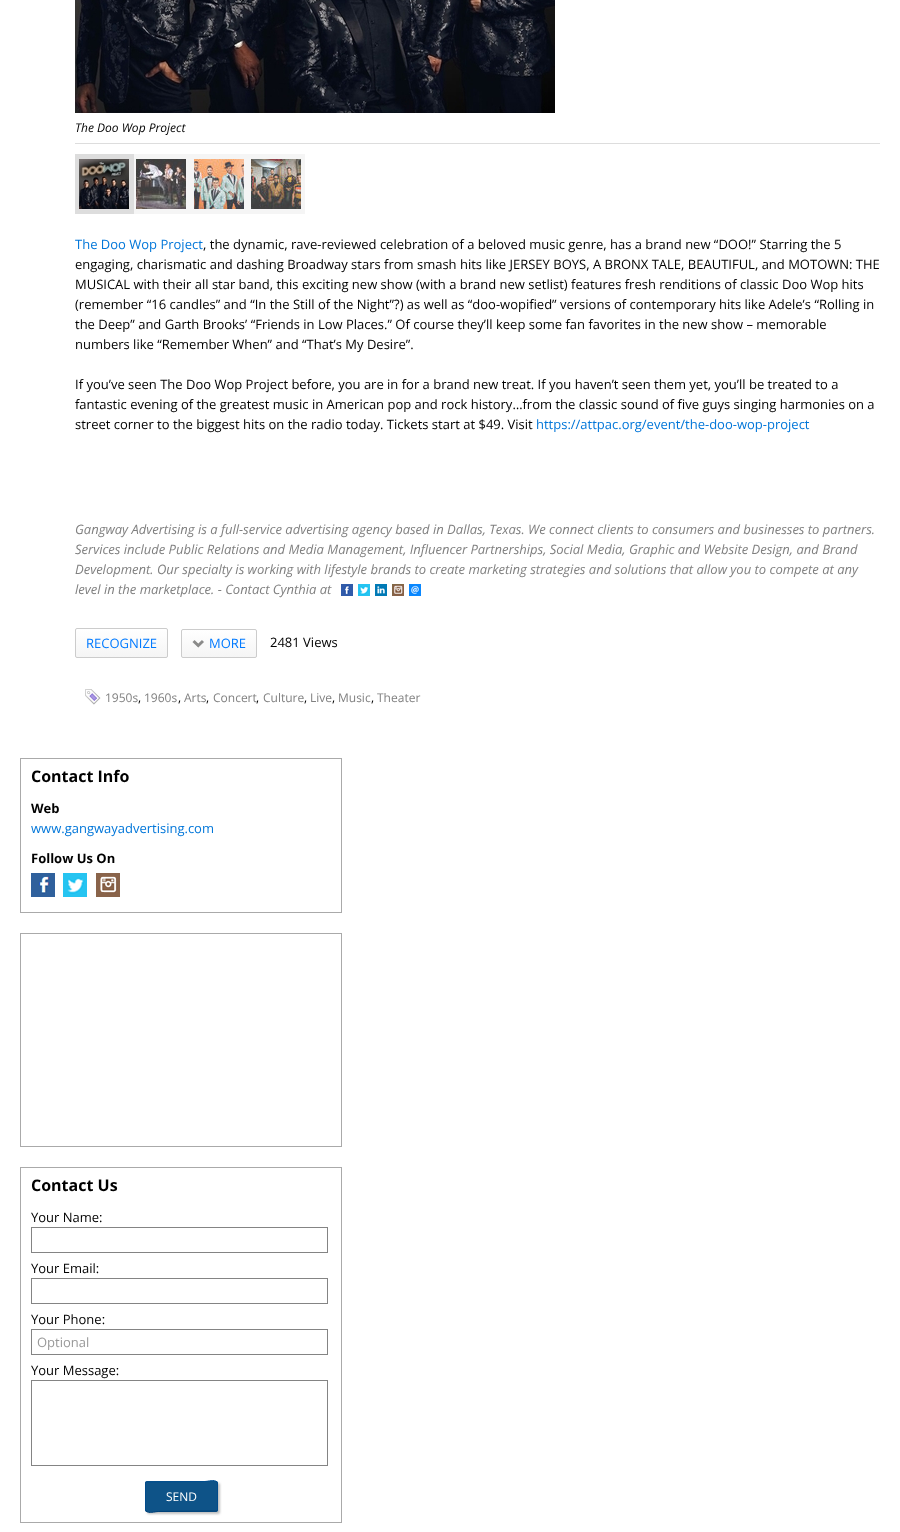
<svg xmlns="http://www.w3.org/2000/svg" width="900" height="1532">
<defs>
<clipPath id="clip1"><rect x="75" y="628" width="93" height="30" rx="2"/></clipPath>
<linearGradient id="g1" gradientUnits="userSpaceOnUse" x1="122" y1="629" x2="122" y2="657"><stop offset="0" stop-color="#fff"/><stop offset="1" stop-color="#f5f5f5"/></linearGradient>
<clipPath id="clip2"><rect x="181" y="629" width="76" height="29" rx="2"/></clipPath>
<linearGradient id="g2" gradientUnits="userSpaceOnUse" x1="219" y1="630" x2="219" y2="657"><stop offset="0" stop-color="#fff"/><stop offset="1" stop-color="#f5f5f5"/></linearGradient>
</defs>
<rect width="100%" height="100%" fill="#fff"/>
<image x="75" y="0" width="480" height="113" href="media/1.png"/>
<text x="75" y="132" style="font-family:Open Sans;font-size:12px;font-style:italic;fill:#000">The Doo Wop Project</text>
<rect x="75" y="143" width="805" height="1" fill="#ddd"/>
<rect x="134" y="154" width="171" height="60" fill="#f5f5f5"/>
<rect x="75" y="154" width="59" height="60" fill="#ddd"/>
<image x="79" y="159" width="50" height="50" href="media/2.png"/>
<image x="136" y="159" width="50" height="50" href="media/3.png"/>
<image x="194" y="159" width="50" height="50" href="media/4.png"/>
<image x="251" y="159" width="50" height="50" href="media/5.png"/>
<text x="75" y="249" style="font-family:Open Sans;font-size:13px;fill:#0176d9">The Doo Wop Project</text>
<text x="203" y="249" style="font-family:Open Sans;font-size:13px;fill:#000">, the dynamic, rave-reviewed celebration of a beloved music genre, has a brand new “DOO!” Starring the 5</text>
<text x="75" y="269" style="font-family:Open Sans;font-size:13px;fill:#000">engaging, charismatic and dashing Broadway stars from smash hits like JERSEY BOYS, A BRONX TALE, BEAUTIFUL, and MOTOWN: THE</text>
<text x="75" y="289" style="font-family:Open Sans;font-size:13px;fill:#000">MUSICAL with their all star band, this exciting new show (with a brand new setlist) features fresh renditions of classic Doo Wop hits</text>
<text x="75" y="309" style="font-family:Open Sans;font-size:13px;fill:#000">(remember “16 candles” and “In the Still of the Night”?) as well as “doo-wopified” versions of contemporary hits like Adele’s “Rolling in</text>
<text x="75" y="329" style="font-family:Open Sans;font-size:13px;fill:#000">the Deep” and Garth Brooks’ “Friends in Low Places.” Of course they’ll keep some fan favorites in the new show – memorable</text>
<text x="75" y="349" style="font-family:Open Sans;font-size:13px;fill:#000">numbers like “Remember When” and “That’s My Desire”.</text>
<text x="75" y="389" style="font-family:Open Sans;font-size:13px;fill:#000">If you’ve seen The Doo Wop Project before, you are in for a brand new treat. If you haven’t seen them yet, you’ll be treated to a</text>
<text x="75" y="409" style="font-family:Open Sans;font-size:13px;fill:#000">fantastic evening of the greatest music in American pop and rock history…from the classic sound of five guys singing harmonies on a</text>
<text x="75" y="429" style="font-family:Open Sans;font-size:13px;fill:#000">street corner to the biggest hits on the radio today. Tickets start at $49. Visit</text>
<text x="536" y="429" style="font-family:Open Sans;font-size:13px;fill:#0176d9">https://attpac.org/event/the-doo-wop-project</text>
<text x="75" y="534" style="font-family:Open Sans;font-size:13px;font-style:italic;fill:#808080">Gangway Advertising is a full-service advertising agency based in Dallas, Texas. We connect clients to consumers and businesses to partners.</text>
<text x="75" y="554" style="font-family:Open Sans;font-size:13px;font-style:italic;fill:#808080">Services include Public Relations and Media Management, Influencer Partnerships, Social Media, Graphic and Website Design, and Brand</text>
<text x="75" y="574" style="font-family:Open Sans;font-size:13px;font-style:italic;fill:#808080">Development. Our specialty is working with lifestyle brands to create marketing strategies and solutions that allow you to compete at any</text>
<text x="75" y="594" style="font-family:Open Sans;font-size:13px;font-style:italic;fill:#808080">level in the marketplace. - Contact Cynthia at</text>
<image x="341" y="584" width="12" height="12" href="media/6.png"/>
<image x="358" y="584" width="12" height="12" href="media/7.png"/>
<image x="375" y="584" width="12" height="12" href="media/8.png"/>
<image x="392" y="584" width="12" height="12" href="media/9.png"/>
<image x="409" y="584" width="12" height="12" href="media/10.png"/>
<g clip-path="url(#clip1)">
<rect x="75" y="629" width="93" height="28" fill="url(#g1)"/>
</g>
<rect x="75.5" y="628.5" width="92" height="29" rx="1.5" fill="none" stroke="#ccc"/>
<text x="86" y="648" style="font-family:Open Sans;font-size:13px;fill:#007aff">RECOGNIZE</text>
<g clip-path="url(#clip2)">
<rect x="181" y="630" width="76" height="27" fill="url(#g2)"/>
</g>
<rect x="181.5" y="629.5" width="75" height="28" rx="1.5" fill="none" stroke="#ccc"/>
<image x="192" y="640" width="12" height="8" href="media/11.png"/>
<text x="209" y="648" style="font-family:Open Sans;font-size:13px;fill:#007aff">MORE</text>
<text x="270" y="647" style="font-family:Open Sans;font-size:13px;fill:#000">2481 Views</text>
<image x="85" y="689" width="16" height="16" href="media/12.png"/>
<text x="105" y="702" style="font-family:Open Sans;font-size:12px;fill:#808080">1950s</text>
<text x="138" y="702" style="font-family:Open Sans;font-size:12px;fill:#000">,</text>
<text x="144" y="702" style="font-family:Open Sans;font-size:12px;fill:#808080">1960s</text>
<text x="178" y="702" style="font-family:Open Sans;font-size:12px;fill:#000">,</text>
<text x="184" y="702" style="font-family:Open Sans;font-size:12px;fill:#808080">Arts</text>
<text x="206" y="702" style="font-family:Open Sans;font-size:12px;fill:#000">,</text>
<text x="213" y="702" style="font-family:Open Sans;font-size:12px;fill:#808080">Concert</text>
<text x="256" y="702" style="font-family:Open Sans;font-size:12px;fill:#000">,</text>
<text x="263" y="702" style="font-family:Open Sans;font-size:12px;fill:#808080">Culture</text>
<text x="304" y="702" style="font-family:Open Sans;font-size:12px;fill:#000">,</text>
<text x="310" y="702" style="font-family:Open Sans;font-size:12px;fill:#808080">Live</text>
<text x="332" y="702" style="font-family:Open Sans;font-size:12px;fill:#000">,</text>
<text x="338" y="702" style="font-family:Open Sans;font-size:12px;fill:#808080">Music</text>
<text x="371" y="702" style="font-family:Open Sans;font-size:12px;fill:#000">,</text>
<text x="377" y="702" style="font-family:Open Sans;font-size:12px;fill:#808080">Theater</text>
<rect x="20.5" y="758.5" width="321" height="154" fill="none" stroke="#aaa"/>
<text x="31" y="782" style="font-family:Open Sans;font-size:16px;font-weight:bold;fill:#000">Contact Info</text>
<text x="31" y="813" style="font-family:Open Sans;font-size:13px;font-weight:bold;fill:#000">Web</text>
<text x="31" y="833" style="font-family:Open Sans;font-size:13px;fill:#0176d9">www.gangwayadvertising.com</text>
<text x="31" y="863" style="font-family:Open Sans;font-size:13px;font-weight:bold;fill:#000">Follow Us On</text>
<image x="31" y="873" width="24" height="24" href="media/13.png"/>
<image x="63" y="873" width="24" height="24" href="media/14.png"/>
<image x="96" y="873" width="24" height="24" href="media/15.png"/>
<rect x="20.5" y="933.5" width="321" height="213" fill="none" stroke="#aaa"/>
<rect x="20.5" y="1167.5" width="321" height="355" fill="none" stroke="#aaa"/>
<text x="31" y="1191" style="font-family:Open Sans;font-size:16px;font-weight:bold;fill:#000">Contact Us</text>
<text x="31" y="1222" style="font-family:Open Sans;font-size:13px;fill:#000">Your Name:</text>
<rect x="31.5" y="1227.5" width="296" height="25" fill="none" stroke="#848484"/>
<text x="31" y="1273" style="font-family:Open Sans;font-size:13px;fill:#000">Your Email:</text>
<rect x="31.5" y="1278.5" width="296" height="25" fill="none" stroke="#848484"/>
<text x="31" y="1324" style="font-family:Open Sans;font-size:13px;fill:#000">Your Phone:</text>
<rect x="31.5" y="1329.5" width="296" height="25" fill="none" stroke="#848484"/>
<text x="37" y="1347" style="font-family:Open Sans;font-size:13px;fill:#999">Optional</text>
<text x="31" y="1375" style="font-family:Open Sans;font-size:13px;fill:#000">Your Message:</text>
<rect x="31.5" y="1380.5" width="296" height="85" fill="none" stroke="#848484"/>
<rect x="147" y="1483" width="73" height="31" rx="2" fill="#c0c0c0" filter="blur(1px)"/>
<rect x="145" y="1481" width="73" height="31" rx="2" fill="#0e5388"/>
<path d="M146 1482l58.5-.5c4 0 9.5-2.5 12.5 .5" fill="none" stroke="#004e91"/>
<path d="M217 1482l.5 1v27l-.5 1" fill="none" stroke="#014b8b"/>
<path d="M217 1511l-58.5 .5c-4 0-9.5 2.5-12.5-.5" fill="none" stroke="#004178"/>
<path d="M146 1511l-.5-1v-27l.5-1" fill="none" stroke="#014b8b"/>
<text x="166" y="1501" style="font-family:Open Sans;font-size:12px;fill:#fff">SEND</text>
</svg>
